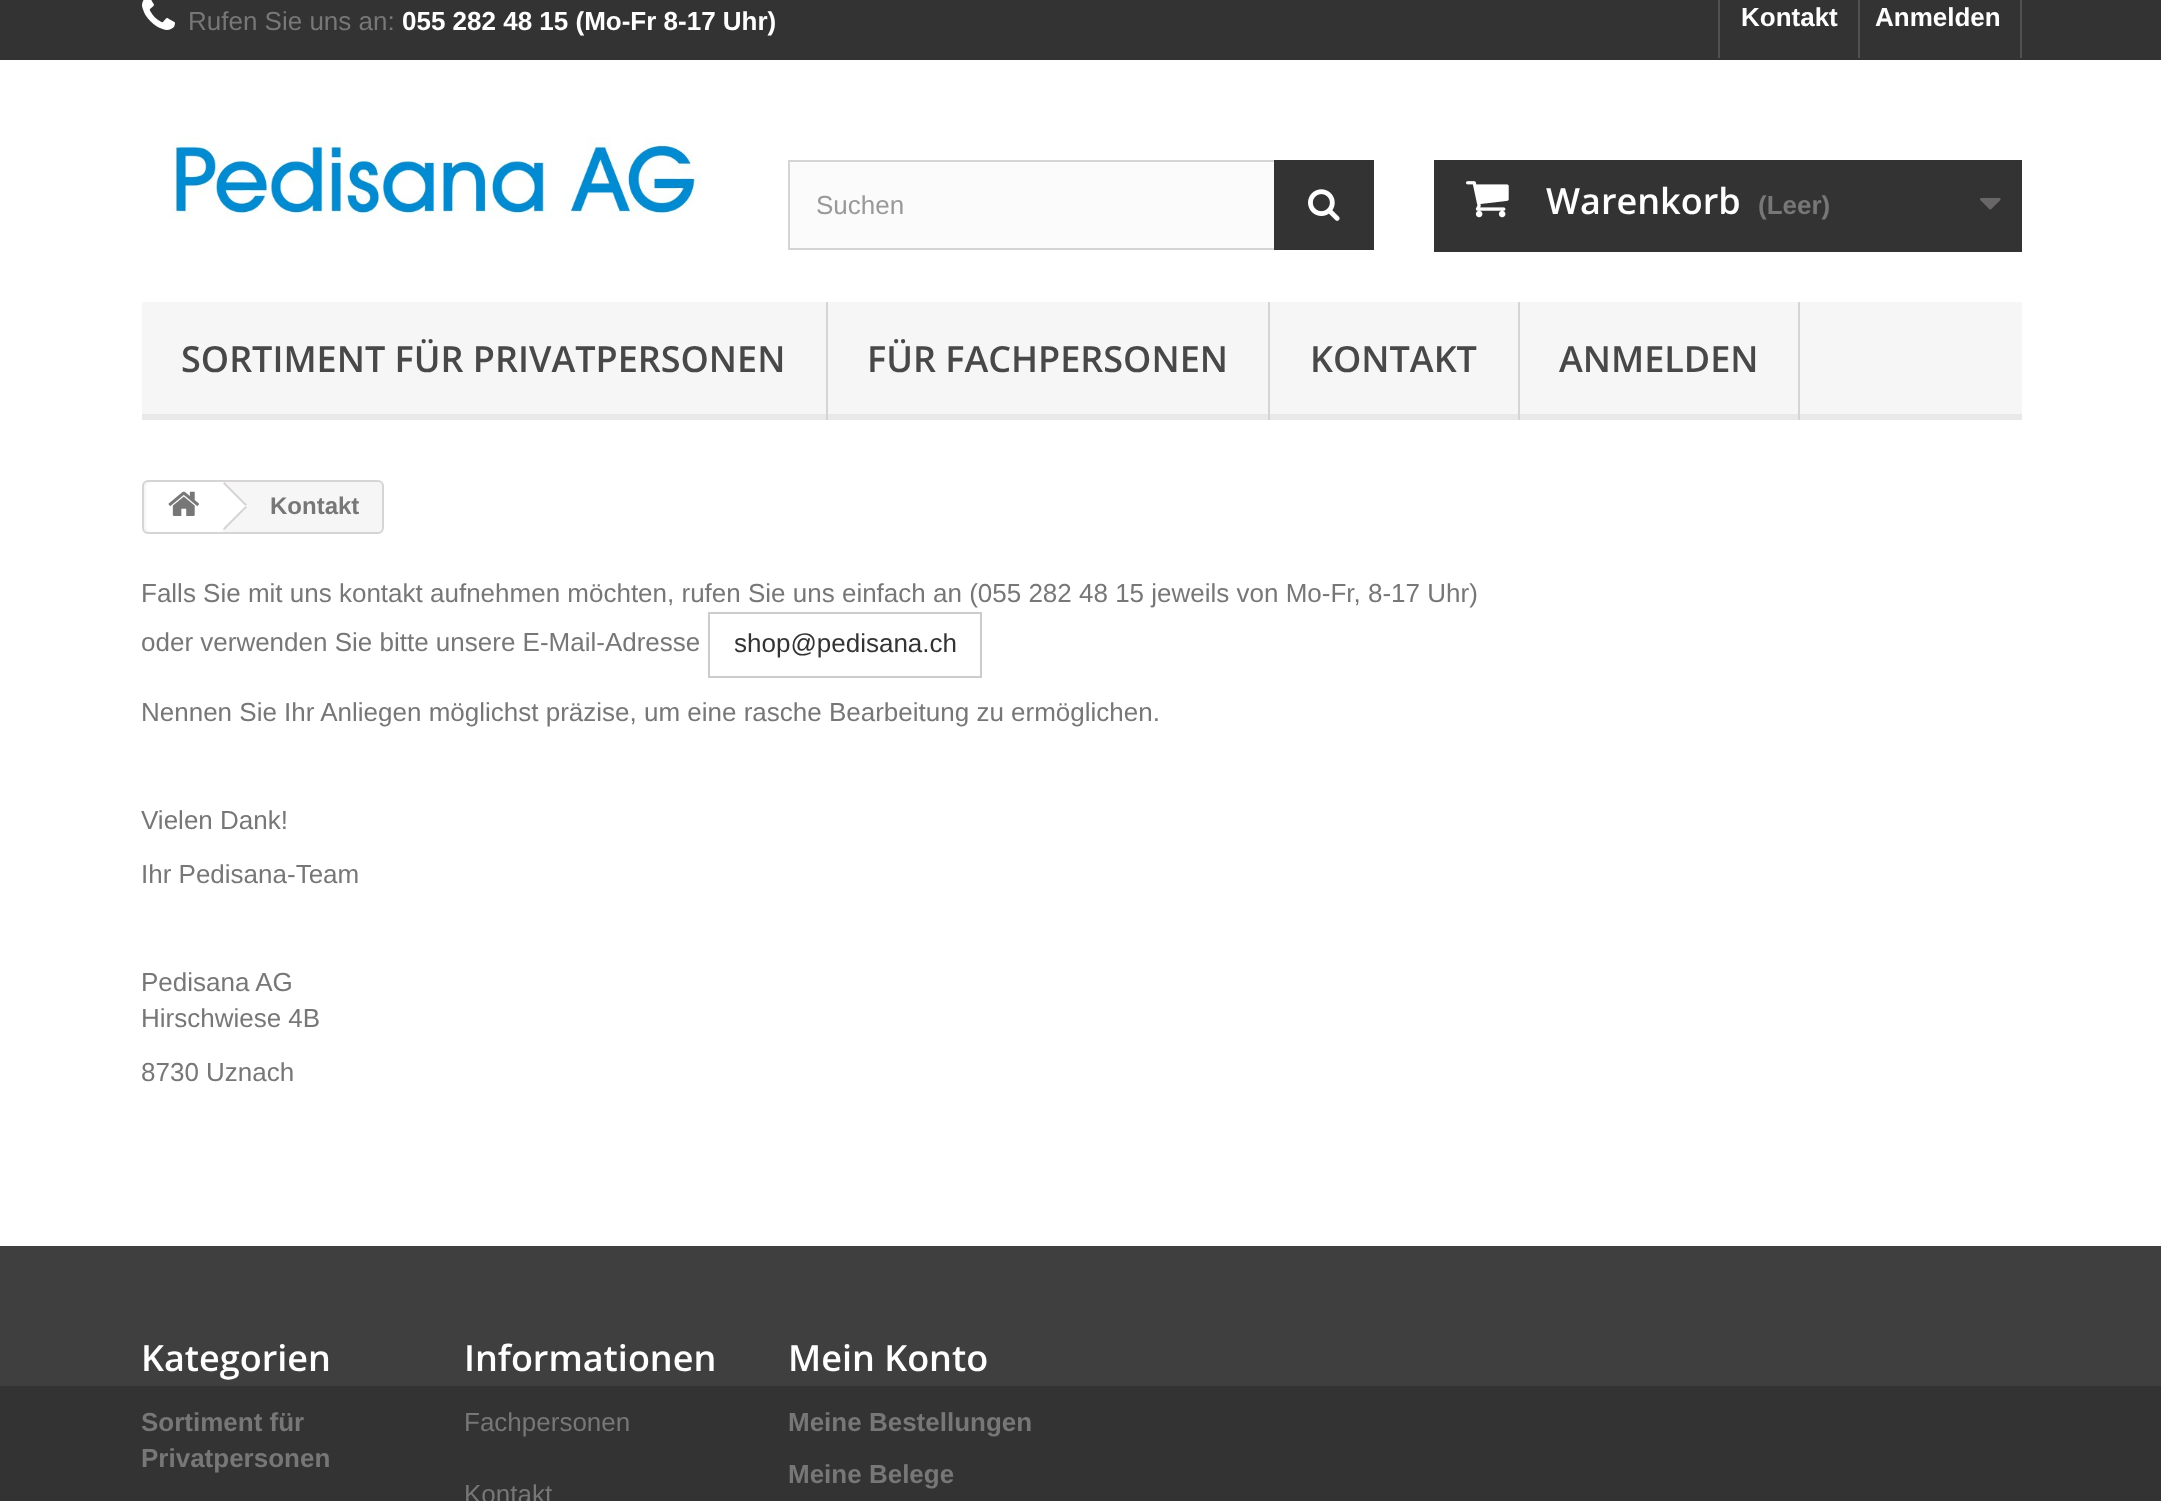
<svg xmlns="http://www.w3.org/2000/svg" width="2161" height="1501">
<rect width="100%" height="100%" fill="#fff"/>
<rect width="2161" height="60" fill="#333"/>
<image x="142" y="0" width="33" height="30" href="media/1.png"/>
<text x="188" y="30" style="font-family:Liberation Sans;font-size:26px;fill:#777">Rufen Sie uns an:</text>
<text x="402" y="30" style="font-family:Liberation Sans;font-size:26px;font-weight:bold;fill:#fff">055 282 48 15 (Mo-Fr 8-17 Uhr)</text>
<rect x="1718" width="2" height="58" fill="#515151"/>
<text x="1741" y="26" style="font-family:Liberation Sans;font-size:26px;font-weight:bold;fill:#fff">Kontakt</text>
<rect x="2020" width="2" height="58" fill="#515151"/>
<rect x="1858" width="2" height="58" fill="#515151"/>
<text x="1875" y="26" style="font-family:Liberation Sans;font-size:26px;font-weight:bold;fill:#fff">Anmelden</text>
<image x="170" y="137" width="532" height="82" href="media/2.png"/>
<rect x="790" y="162" width="484" height="86" fill="#fbfbfb"/>
<rect x="789" y="161" width="584" height="88" fill="none" stroke="#d6d4d4" stroke-width="2"/>
<text x="816" y="214" style="font-family:Liberation Sans;font-size:26px;fill:#999">Suchen</text>
<rect x="1274" y="160" width="100" height="90" fill="#333"/>
<image x="1308" y="189" width="32" height="32" href="media/3.png"/>
<rect x="1434" y="160" width="588" height="92" fill="#333"/>
<image x="1466" y="181" width="43" height="37" href="media/4.png"/>
<text x="1546" y="214" style="font-family:Open Sans;font-size:36px;font-weight:600;fill:#fff">Warenkorb</text>
<text x="1758" y="214" style="font-family:Liberation Sans;font-size:26px;font-weight:bold;fill:#777">(Leer)</text>
<image x="1980" y="198" width="21" height="12" href="media/5.png"/>
<rect x="142" y="302" width="1880" height="112" fill="#f6f6f6"/>
<rect x="142" y="414" width="1880" height="6" fill="#e9e9e9"/>
<rect x="826" y="302" width="2" height="118" fill="#d6d4d4"/>
<text x="181" y="372" style="font-family:Open Sans;font-size:36px;font-weight:600;fill:#484848">SORTIMENT FÜR PRIVATPERSONEN</text>
<rect x="1268" y="302" width="2" height="118" fill="#d6d4d4"/>
<text x="867" y="372" style="font-family:Open Sans;font-size:36px;font-weight:600;fill:#484848">FÜR FACHPERSONEN</text>
<rect x="1518" y="302" width="2" height="118" fill="#d6d4d4"/>
<text x="1310" y="372" style="font-family:Open Sans;font-size:36px;font-weight:600;fill:#484848">KONTAKT</text>
<rect x="1798" y="302" width="2" height="118" fill="#d6d4d4"/>
<text x="1559" y="372" style="font-family:Open Sans;font-size:36px;font-weight:600;fill:#484848">ANMELDEN</text>
<rect x="143" y="481" width="240" height="52" rx="5" fill="#f6f6f6" stroke="#d6d4d4" stroke-width="2"/>
<path d="M152 482h70v50h-70c-3.5 0-6-2.5-6-6v-38c0-3.5 2.5-6 6-6z" fill="#fff"/>
<image x="168" y="491" width="31" height="25" href="media/6.png"/>
<path d="M226 483l20 20c1 2 1 4 0 6l-20 20c-2 1-4 1-6 0l-20-20c-1-2-1-4 0-6l20-20c2-1 4-1 6 0z" fill="#fff"/>
<path d="M224.5 482l22.5 22.5l-1.5 1.5l-22.5-22.5zm21 24l1.5 1.5l-22.5 22.5l-1.5-1.5z" fill="#d6d4d4"/>
<text x="270" y="514" style="font-family:Liberation Sans;font-size:24px;font-weight:bold;fill:#777">Kontakt</text>
<text x="141" y="602" style="font-family:Liberation Sans;font-size:26px;fill:#777">Falls Sie mit uns kontakt aufnehmen möchten, rufen Sie uns einfach an (055 282 48 15 jeweils von Mo-Fr, 8-17 Uhr)</text>
<text x="141" y="651" style="font-family:Liberation Sans;font-size:26px;fill:#777">oder verwenden Sie bitte unsere E-Mail-Adresse</text>
<rect x="709" y="613" width="272" height="64" fill="none" stroke="#ccc" stroke-width="2"/>
<text x="734" y="652" style="font-family:Liberation Sans;font-size:26px;fill:#333">shop@pedisana.ch</text>
<text x="141" y="721" style="font-family:Liberation Sans;font-size:26px;fill:#777">Nennen Sie Ihr Anliegen möglichst präzise, um eine rasche Bearbeitung zu ermöglichen.</text>
<text x="141" y="829" style="font-family:Liberation Sans;font-size:26px;fill:#777">Vielen Dank!</text>
<text x="141" y="883" style="font-family:Liberation Sans;font-size:26px;fill:#777">Ihr Pedisana-Team</text>
<text x="141" y="991" style="font-family:Liberation Sans;font-size:26px;fill:#777">Pedisana AG</text>
<text x="141" y="1027" style="font-family:Liberation Sans;font-size:26px;fill:#777">Hirschwiese 4B</text>
<text x="141" y="1081" style="font-family:Liberation Sans;font-size:26px;fill:#777">8730 Uznach</text>
<rect y="1386" width="2161" height="115" fill="#333"/>
<rect y="1246" width="2161" height="140" fill="#3f3f3f"/>
<text x="141" y="1371" style="font-family:Open Sans;font-size:36px;font-weight:600;fill:#fff">Kategorien</text>
<text x="141" y="1431" style="font-family:Liberation Sans;font-size:26px;font-weight:bold;fill:#777">Sortiment für</text>
<text x="141" y="1467" style="font-family:Liberation Sans;font-size:26px;font-weight:bold;fill:#777">Privatpersonen</text>
<text x="464" y="1371" style="font-family:Open Sans;font-size:36px;font-weight:600;fill:#fff">Informationen</text>
<text x="464" y="1431" style="font-family:Liberation Sans;font-size:26px;fill:#777">Fachpersonen</text>
<text x="464" y="1503" style="font-family:Liberation Sans;font-size:26px;fill:#777">Kontakt</text>
<text x="788" y="1371" style="font-family:Open Sans;font-size:36px;font-weight:600;fill:#fff">Mein Konto</text>
<text x="788" y="1431" style="font-family:Liberation Sans;font-size:26px;font-weight:bold;fill:#777">Meine Bestellungen</text>
<text x="788" y="1483" style="font-family:Liberation Sans;font-size:26px;font-weight:bold;fill:#777">Meine Belege</text>
</svg>
